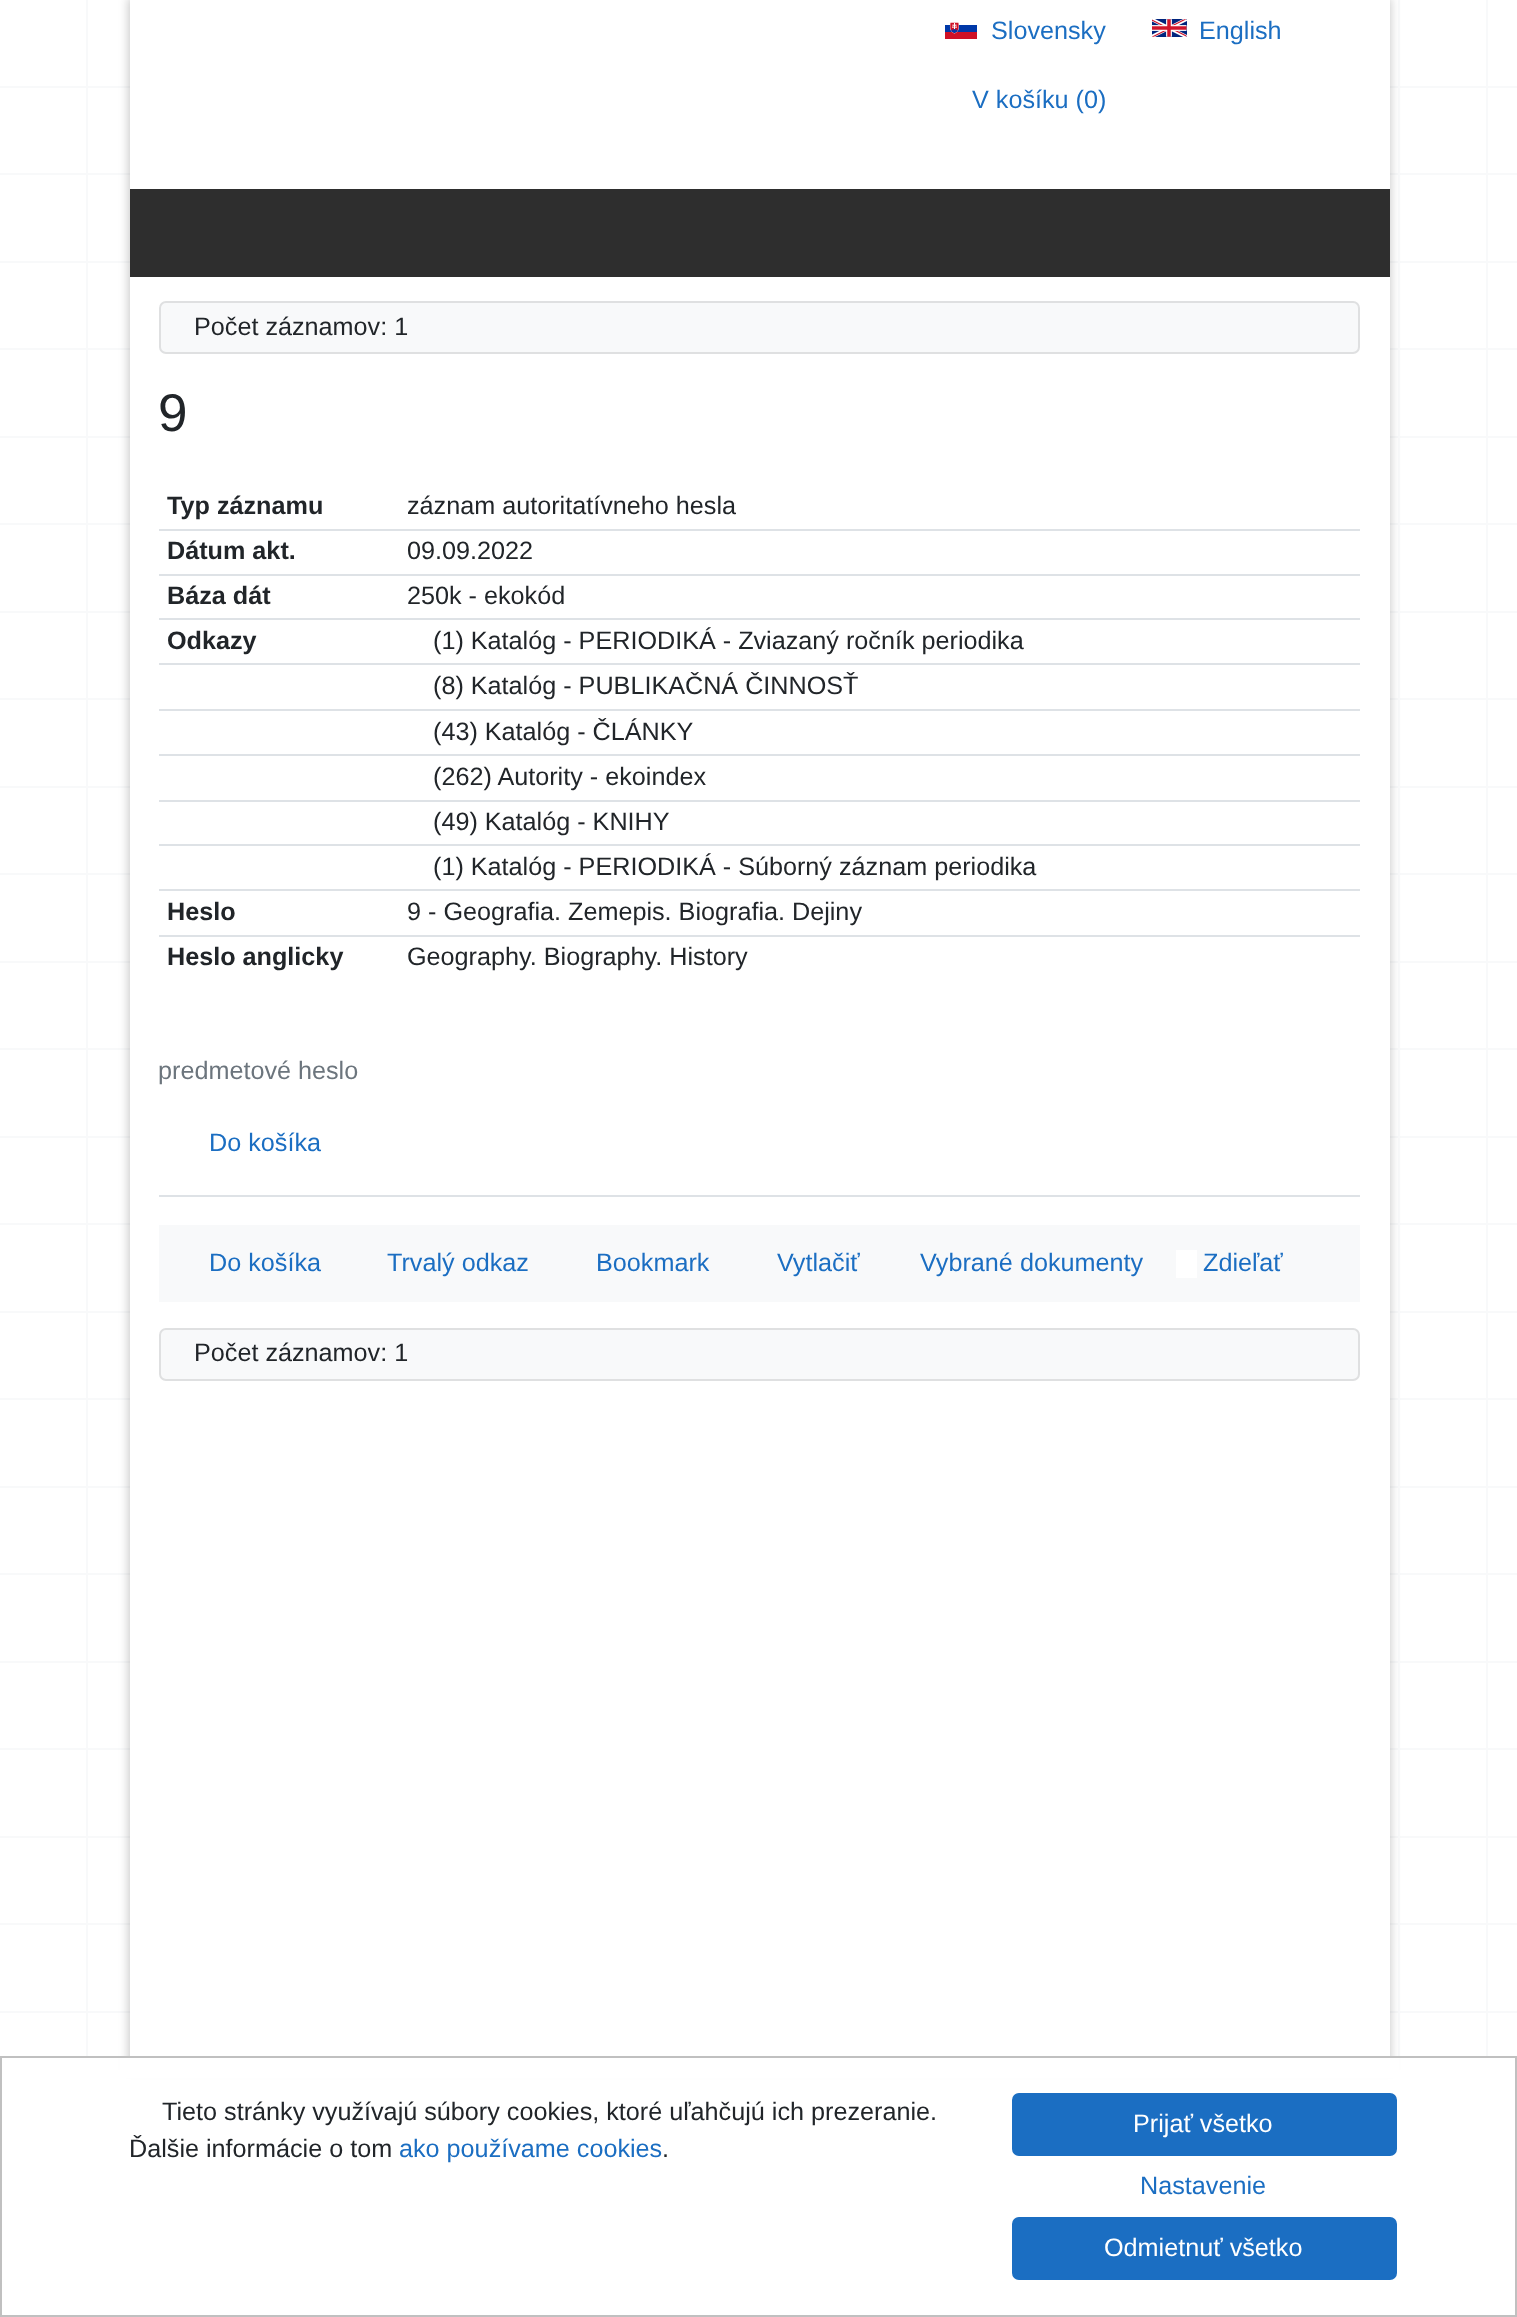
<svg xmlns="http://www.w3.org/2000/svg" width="1517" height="2317">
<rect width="100%" height="100%" fill="#fff"/>
<rect x="86" width="2" height="2056" fill="#f8f9fa"/>
<rect x="1398" width="2" height="2056" fill="#f8f9fa"/>
<rect x="1486" width="2" height="2056" fill="#f8f9fa"/>
<image x="0" y="86" width="1517" height="1927" href="media/1.png"/>
<rect x="128" y="-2" width="1263" height="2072" fill="#00000033" filter="blur(5px)"/>
<rect x="130" width="1260" height="2056" fill="#fff"/>
<image x="945" y="22" width="32" height="17" href="media/2.png"/>
<text x="991" y="39" style="font-family:Liberation Sans;font-size:25.2px;fill:#1b6ec2">Slovensky</text>
<image x="1152" y="19" width="35" height="18" href="media/3.png"/>
<text x="1199" y="39" style="font-family:Liberation Sans;font-size:25.2px;fill:#1b6ec2">English</text>
<text x="972" y="108" style="font-family:Liberation Sans;font-size:25.2px;fill:#1b6ec2">V košíku (0)</text>
<rect x="130" y="189" width="1260" height="88" fill="#2e2e2e"/>
<rect x="159" y="301" width="1201" height="53" rx="7" fill="#f8f9fa"/>
<rect x="160" y="302" width="1199" height="51" rx="6" fill="none" stroke="#3333331f" stroke-width="2"/>
<text x="194" y="335" style="font-family:Liberation Sans;font-size:25.2px;fill:#212529">Počet záznamov: 1</text>
<text x="158" y="431" style="font-family:Liberation Sans;font-size:53px;fill:#212529">9</text>
<text x="167" y="514" style="font-family:Liberation Sans;font-size:25.2px;font-weight:bold;fill:#212529">Typ záznamu</text>
<text x="407" y="514" style="font-family:Liberation Sans;font-size:25.2px;fill:#212529">záznam autoritatívneho hesla</text>
<text x="167" y="559" style="font-family:Liberation Sans;font-size:25.2px;font-weight:bold;fill:#212529">Dátum akt.</text>
<rect x="159" y="529" width="1201" height="2" fill="#dee2e6"/>
<text x="407" y="559" style="font-family:Liberation Sans;font-size:25.2px;fill:#212529">09.09.2022</text>
<text x="167" y="604" style="font-family:Liberation Sans;font-size:25.2px;font-weight:bold;fill:#212529">Báza dát</text>
<rect x="159" y="574" width="1201" height="2" fill="#dee2e6"/>
<text x="407" y="604" style="font-family:Liberation Sans;font-size:25.2px;fill:#212529">250k - ekokód</text>
<text x="167" y="649" style="font-family:Liberation Sans;font-size:25.2px;font-weight:bold;fill:#212529">Odkazy</text>
<rect x="159" y="618" width="1201" height="2" fill="#dee2e6"/>
<text x="433" y="649" style="font-family:Liberation Sans;font-size:25.2px;fill:#212529">(1) Katalóg - PERIODIKÁ - Zviazaný ročník periodika</text>
<rect x="159" y="663" width="1201" height="2" fill="#dee2e6"/>
<text x="433" y="694" style="font-family:Liberation Sans;font-size:25.2px;fill:#212529">(8) Katalóg - PUBLIKAČNÁ ČINNOSŤ</text>
<rect x="159" y="709" width="1201" height="2" fill="#dee2e6"/>
<text x="433" y="740" style="font-family:Liberation Sans;font-size:25.2px;fill:#212529">(43) Katalóg - ČLÁNKY</text>
<rect x="159" y="754" width="1201" height="2" fill="#dee2e6"/>
<text x="433" y="785" style="font-family:Liberation Sans;font-size:25.2px;fill:#212529">(262) Autority - ekoindex</text>
<rect x="159" y="800" width="1201" height="2" fill="#dee2e6"/>
<text x="433" y="830" style="font-family:Liberation Sans;font-size:25.2px;fill:#212529">(49) Katalóg - KNIHY</text>
<rect x="159" y="844" width="1201" height="2" fill="#dee2e6"/>
<text x="433" y="875" style="font-family:Liberation Sans;font-size:25.2px;fill:#212529">(1) Katalóg - PERIODIKÁ - Súborný záznam periodika</text>
<text x="167" y="920" style="font-family:Liberation Sans;font-size:25.2px;font-weight:bold;fill:#212529">Heslo</text>
<rect x="159" y="889" width="1201" height="2" fill="#dee2e6"/>
<text x="407" y="920" style="font-family:Liberation Sans;font-size:25.2px;fill:#212529">9 - Geografia. Zemepis. Biografia. Dejiny</text>
<text x="167" y="965" style="font-family:Liberation Sans;font-size:25.2px;font-weight:bold;fill:#212529">Heslo anglicky</text>
<rect x="159" y="935" width="1201" height="2" fill="#dee2e6"/>
<text x="407" y="965" style="font-family:Liberation Sans;font-size:25.2px;fill:#212529">Geography. Biography. History</text>
<text x="158" y="1079" style="font-family:Liberation Sans;font-size:25.2px;fill:#6c757d">predmetové heslo</text>
<text x="209" y="1151" style="font-family:Liberation Sans;font-size:25.2px;fill:#1b6ec2">Do košíka</text>
<rect x="159" y="1195" width="1201" height="2" fill="#dee2e6"/>
<rect x="159" y="1225" width="1201" height="77" fill="#f8f9fa"/>
<text x="209" y="1271" style="font-family:Liberation Sans;font-size:25.2px;fill:#1b6ec2">Do košíka</text>
<text x="387" y="1271" style="font-family:Liberation Sans;font-size:25.2px;fill:#1b6ec2">Trvalý odkaz</text>
<text x="596" y="1271" style="font-family:Liberation Sans;font-size:25.2px;fill:#1b6ec2">Bookmark</text>
<text x="777" y="1271" style="font-family:Liberation Sans;font-size:25.2px;fill:#1b6ec2">Vytlačiť</text>
<text x="920" y="1271" style="font-family:Liberation Sans;font-size:25.2px;fill:#1b6ec2">Vybrané dokumenty</text>
<text x="1203" y="1271" style="font-family:Liberation Sans;font-size:25.2px;fill:#1b6ec2">Zdieľať</text>
<rect x="1176" y="1250" width="21" height="28" fill="#fff"/>
<rect x="159" y="1328" width="1201" height="53" rx="7" fill="#f8f9fa"/>
<rect x="160" y="1329" width="1199" height="51" rx="6" fill="none" stroke="#3333331f" stroke-width="2"/>
<text x="194" y="1361" style="font-family:Liberation Sans;font-size:25.2px;fill:#212529">Počet záznamov: 1</text>
<rect x="120" y="2058" width="1279" height="20" fill="#fff"/>
<rect x="1" y="2057" width="1515" height="259" fill="none" stroke="#c0c0c0" stroke-width="2"/>
<text x="162" y="2120" style="font-family:Liberation Sans;font-size:25.2px;fill:#212529">Tieto stránky využívajú súbory cookies, ktoré uľahčujú ich prezeranie.</text>
<text x="129" y="2157" style="font-family:Liberation Sans;font-size:25.2px;fill:#212529">Ďalšie informácie o tom</text>
<text x="399" y="2157" style="font-family:Liberation Sans;font-size:25.2px;fill:#1b6ec2">ako používame cookies</text>
<text x="662" y="2157" style="font-family:Liberation Sans;font-size:25.2px;fill:#212529">.</text>
<rect x="1013" y="2094" width="383" height="61" rx="6" fill="#1b6ec2" stroke="#1b6ec2" stroke-width="2"/>
<text x="1133" y="2132" style="font-family:Liberation Sans;font-size:25.2px;fill:#fff">Prijať všetko</text>
<text x="1140" y="2194" style="font-family:Liberation Sans;font-size:25.2px;fill:#1b6ec2">Nastavenie</text>
<rect x="1013" y="2218" width="383" height="61" rx="6" fill="#1b6ec2" stroke="#1b6ec2" stroke-width="2"/>
<text x="1104" y="2256" style="font-family:Liberation Sans;font-size:25.2px;fill:#fff">Odmietnuť všetko</text>
</svg>
